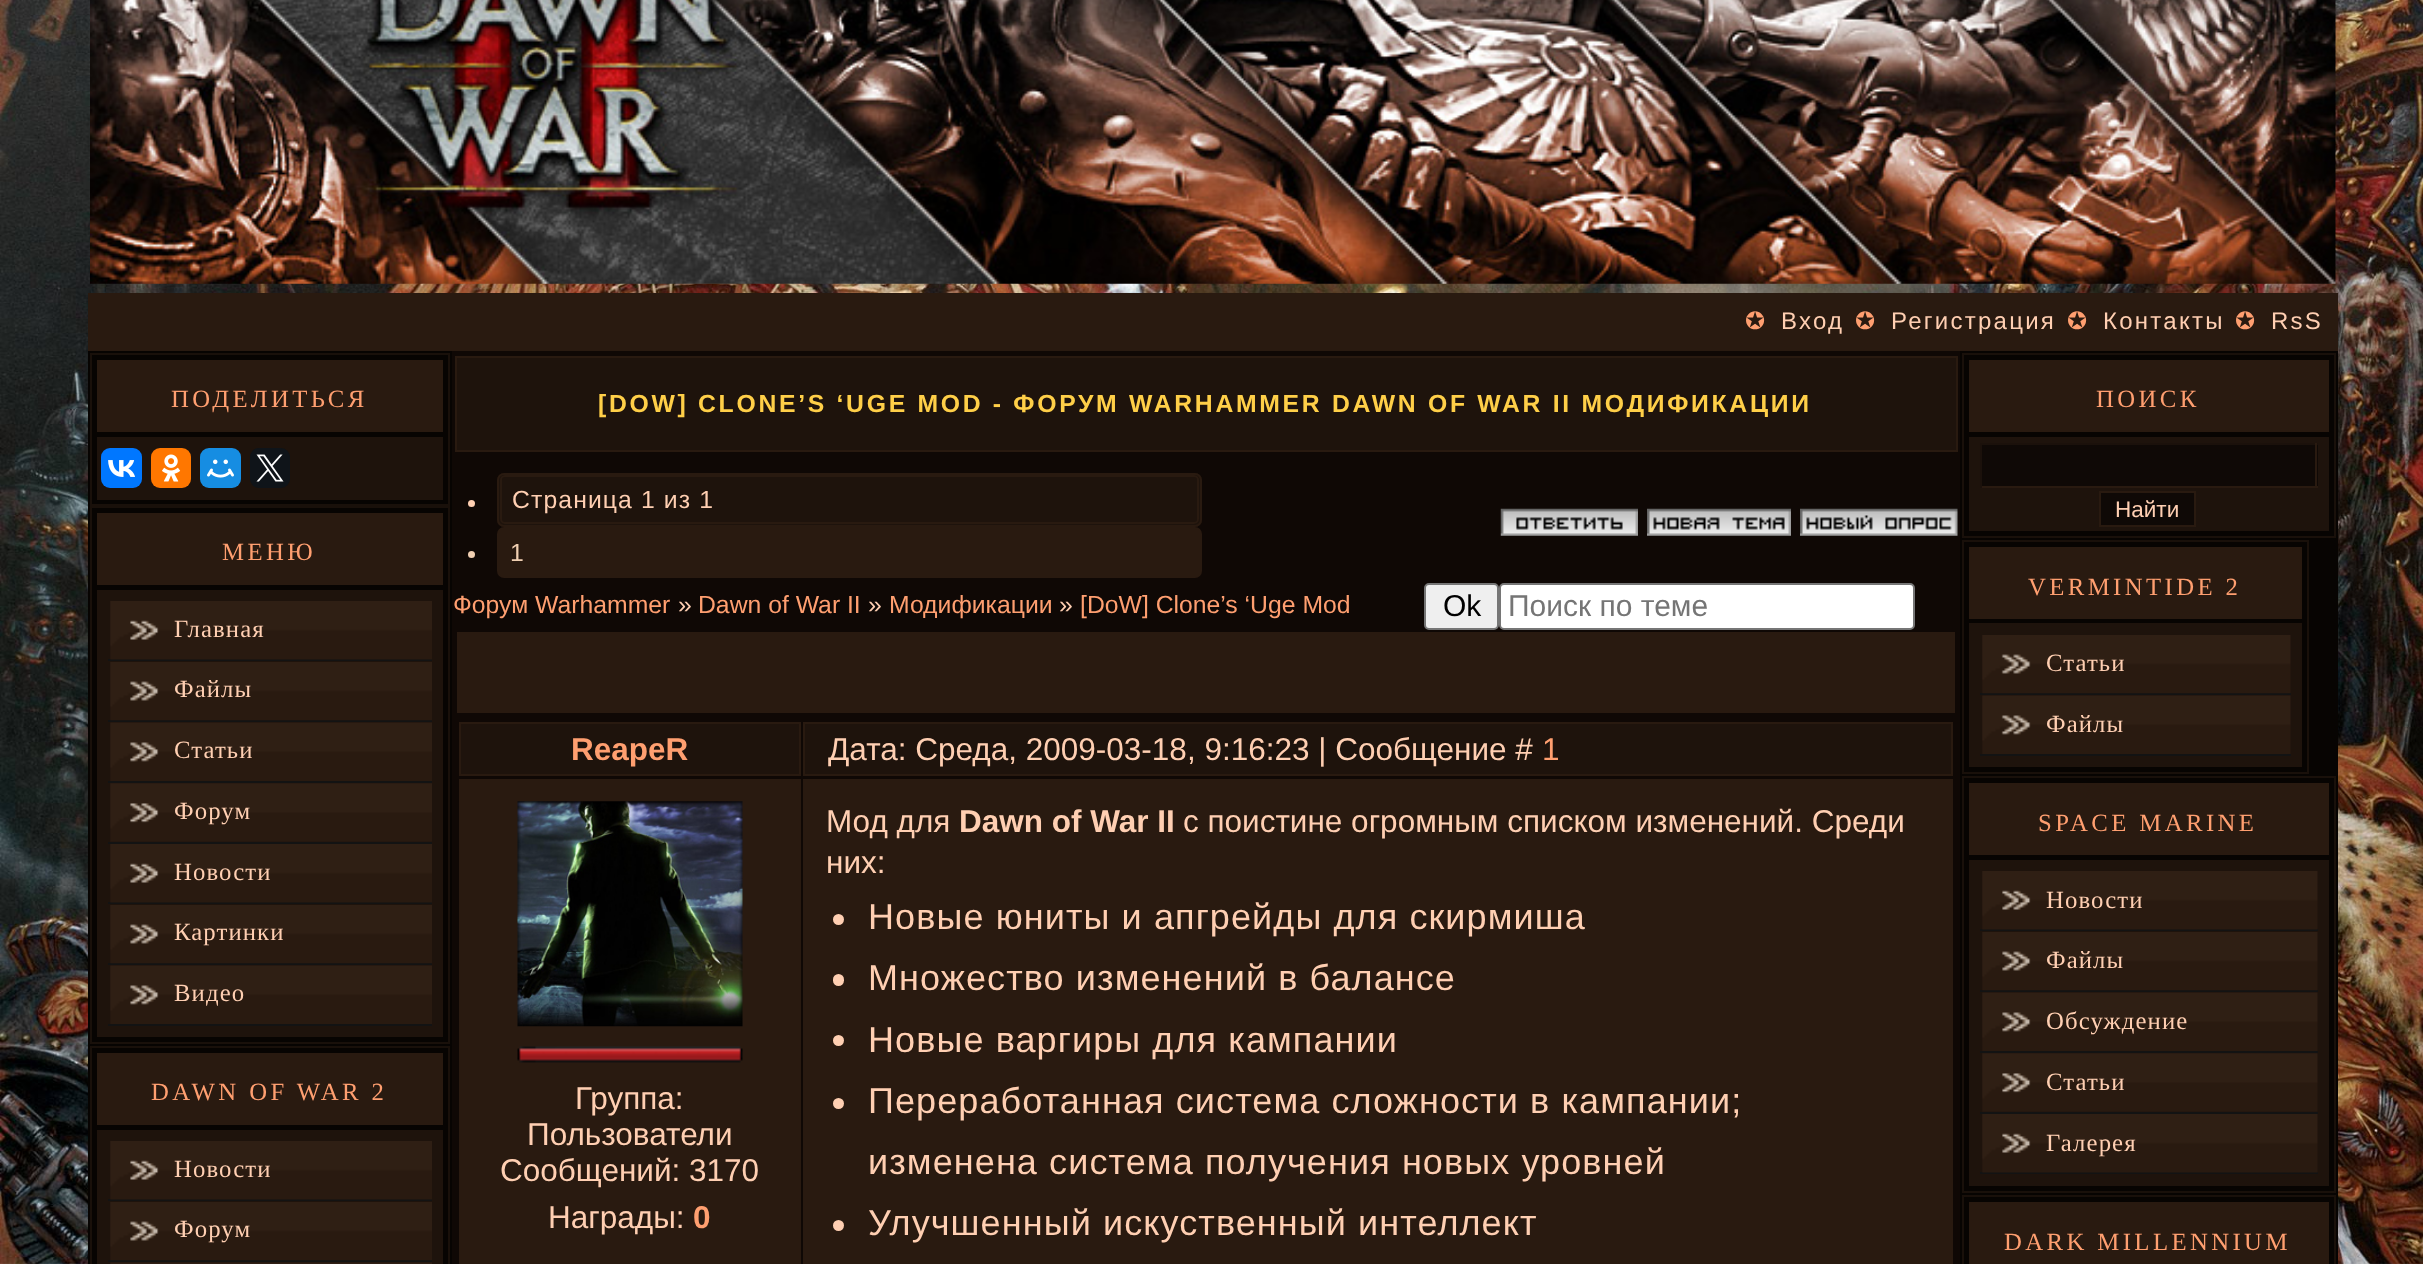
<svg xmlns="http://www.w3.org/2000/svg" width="2423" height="1264">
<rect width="100%" height="100%" fill="#fff"/>
<image x="0" y="0" width="2423" height="1264" href="media/1.png"/>
<image x="90" y="0" width="2246" height="284" href="media/2.png"/>
<rect x="88" y="293" width="2250" height="58" fill="#291a10"/>
<text x="1745" y="329" style="font-family:DejaVu Sans;font-size:24px;letter-spacing:4px;fill:#ff9f70">✪</text>
<text x="1781" y="329" style="font-family:Liberation Sans;font-size:24px;letter-spacing:2.25px;fill:#ffcfb2">Вход</text>
<text x="1855" y="329" style="font-family:DejaVu Sans;font-size:24px;letter-spacing:4px;fill:#ff9f70">✪</text>
<text x="1891" y="329" style="font-family:Liberation Sans;font-size:24px;letter-spacing:2.25px;fill:#ffcfb2">Регистрация</text>
<text x="2067" y="329" style="font-family:DejaVu Sans;font-size:24px;letter-spacing:4px;fill:#ff9f70">✪</text>
<text x="2103" y="329" style="font-family:Liberation Sans;font-size:24px;letter-spacing:2.25px;fill:#ffcfb2">Контакты</text>
<text x="2235" y="329" style="font-family:DejaVu Sans;font-size:24px;letter-spacing:4px;fill:#ff9f70">✪</text>
<text x="2271" y="329" style="font-family:Liberation Sans;font-size:24px;letter-spacing:2.25px;fill:#ffcfb2">RsS</text>
<rect x="88" y="351" width="364" height="913" fill="#070402"/>
<rect x="91" y="354" width="358" height="151" fill="none" stroke="#19100a" stroke-width="2"/>
<rect x="97" y="360" width="346" height="72" fill="#291a10"/>
<text x="171" y="407" style="font-family:Liberation Serif;font-size:24.75px;letter-spacing:3.4px;fill:#ff9f70">ПОДЕЛИТЬСЯ</text>
<rect x="97" y="437" width="346" height="63" fill="#1e130c"/>
<rect x="101" y="448" width="41" height="40" rx="9" fill="#07f"/>
<image x="108" y="460" width="27" height="17" href="media/3.png"/>
<rect x="151" y="448" width="40" height="40" rx="9" fill="#f70"/>
<image x="162" y="454" width="19" height="28" href="media/4.png"/>
<rect x="200" y="448" width="41" height="40" rx="9" fill="#168de2"/>
<image x="207" y="459" width="27" height="19" href="media/5.png"/>
<rect x="250" y="448" width="40" height="40" rx="9" fill="#0f1419"/>
<image x="256" y="454" width="28" height="28" href="media/6.png"/>
<rect x="91" y="507" width="358" height="536" fill="none" stroke="#19100a" stroke-width="2"/>
<rect x="97" y="513" width="346" height="72" fill="#291a10"/>
<text x="222" y="560" style="font-family:Liberation Serif;font-size:24.75px;letter-spacing:3.4px;fill:#ff9f70">МЕНЮ</text>
<rect x="97" y="590" width="346" height="447" fill="#1e130c"/>
<rect x="108" y="659" width="324" height="2" fill="#131313"/>
<image x="110" y="601" width="322" height="59" href="media/7.png"/>
<text x="174" y="637" style="font-family:Liberation Serif;font-size:24.75px;letter-spacing:1.1px;fill:#ffcfb2">Главная</text>
<rect x="108" y="720" width="324" height="2" fill="#131313"/>
<image x="110" y="662" width="322" height="59" href="media/8.png"/>
<text x="174" y="697" style="font-family:Liberation Serif;font-size:24.75px;letter-spacing:1.1px;fill:#ffcfb2">Файлы</text>
<rect x="108" y="781" width="324" height="2" fill="#131313"/>
<image x="110" y="722" width="322" height="59" href="media/9.png"/>
<text x="174" y="758" style="font-family:Liberation Serif;font-size:24.75px;letter-spacing:1.1px;fill:#ffcfb2">Статьи</text>
<rect x="108" y="842" width="324" height="2" fill="#131313"/>
<image x="110" y="783" width="322" height="59" href="media/10.png"/>
<text x="174" y="819" style="font-family:Liberation Serif;font-size:24.75px;letter-spacing:1.1px;fill:#ffcfb2">Форум</text>
<rect x="108" y="902" width="324" height="2" fill="#131313"/>
<image x="110" y="844" width="322" height="59" href="media/11.png"/>
<text x="174" y="880" style="font-family:Liberation Serif;font-size:24.75px;letter-spacing:1.1px;fill:#ffcfb2">Новости</text>
<rect x="108" y="963" width="324" height="2" fill="#131313"/>
<image x="110" y="905" width="322" height="59" href="media/12.png"/>
<text x="174" y="940" style="font-family:Liberation Serif;font-size:24.75px;letter-spacing:1.1px;fill:#ffcfb2">Картинки</text>
<rect x="108" y="1024" width="324" height="2" fill="#131313"/>
<image x="110" y="965" width="322" height="59" href="media/9.png"/>
<text x="174" y="1001" style="font-family:Liberation Serif;font-size:24.75px;letter-spacing:1.1px;fill:#ffcfb2">Видео</text>
<rect x="91" y="1047" width="358" height="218" fill="none" stroke="#19100a" stroke-width="2"/>
<rect x="97" y="1053" width="346" height="72" fill="#291a10"/>
<text x="151" y="1100" style="font-family:Liberation Serif;font-size:24.75px;letter-spacing:3.4px;fill:#ff9f70">DAWN OF WAR 2</text>
<rect x="97" y="1130" width="346" height="134" fill="#1e130c"/>
<rect x="108" y="1199" width="324" height="2" fill="#131313"/>
<image x="110" y="1141" width="322" height="59" href="media/11.png"/>
<text x="174" y="1177" style="font-family:Liberation Serif;font-size:24.75px;letter-spacing:1.1px;fill:#ffcfb2">Новости</text>
<rect x="108" y="1260" width="324" height="2" fill="#131313"/>
<image x="110" y="1202" width="322" height="59" href="media/8.png"/>
<text x="174" y="1237" style="font-family:Liberation Serif;font-size:24.75px;letter-spacing:1.1px;fill:#ffcfb2">Форум</text>
<image x="110" y="1262" width="322" height="2" href="media/13.png"/>
<rect x="452" y="351" width="1508" height="913" fill="#0f0805"/>
<rect x="456" y="357" width="1501" height="94" fill="#1e130c" stroke="#291a10" stroke-width="2"/>
<text x="598" y="412" style="font-family:Liberation Sans;font-size:24.75px;font-weight:bold;letter-spacing:2.7px;fill:#ffcf48">[DOW] CLONE’S ‘UGE MOD - ФОРУМ WARHAMMER DAWN OF WAR II МОДИФИКАЦИИ</text>
<rect x="497" y="473" width="705" height="54" rx="7" fill="#1e130c"/>
<rect x="501" y="476" width="697" height="47" rx="4" fill="none" stroke="#291a10" stroke-width="2"/>
<rect x="498" y="474" width="703" height="52" rx="6" fill="none" stroke="#291a10" stroke-width="2"/>
<circle cx="471.5" cy="503.5" r="3.5" fill="#ffcfb2"/>
<text x="512" y="508" style="font-family:Liberation Sans;font-size:24.75px;letter-spacing:1.1px;fill:#ffcfb2">Страница 1 из 1</text>
<rect x="497" y="527" width="705" height="51" rx="7" fill="#291a10"/>
<circle cx="471.5" cy="554.5" r="3.5" fill="#f0cfb2"/>
<text x="510" y="561" style="font-family:Liberation Sans;font-size:24.75px;letter-spacing:1.1px;fill:#f0cfb2">1</text>
<image x="1500" y="508" width="138" height="28" href="media/14.png"/>
<image x="1647" y="508" width="144" height="28" href="media/15.png"/>
<image x="1800" y="508" width="158" height="28" href="media/16.png"/>
<text x="453" y="613" style="font-family:Liberation Sans;font-size:24.75px;fill:#ff9f70">Форум Warhammer</text>
<text x="678" y="613" style="font-family:Liberation Sans;font-size:24.75px;fill:#ffcfb2">»</text>
<text x="698" y="613" style="font-family:Liberation Sans;font-size:24.75px;fill:#ff9f70">Dawn of War II</text>
<text x="868" y="613" style="font-family:Liberation Sans;font-size:24.75px;fill:#ffcfb2">»</text>
<text x="889" y="613" style="font-family:Liberation Sans;font-size:24.75px;fill:#ff9f70">Модификации</text>
<text x="1059" y="613" style="font-family:Liberation Sans;font-size:24.75px;fill:#ffcfb2">»</text>
<text x="1080" y="613" style="font-family:Liberation Sans;font-size:24.75px;fill:#ff9f70">[DoW] Clone’s ‘Uge Mod</text>
<rect x="1425" y="584" width="73" height="45" rx="4" fill="#efefef" stroke="#767676" stroke-width="2"/>
<text x="1443" y="616" style="font-family:Liberation Sans;font-size:30px;fill:#000">Ok</text>
<rect x="1500" y="584" width="414" height="45" rx="4" fill="#fff" stroke="#767676" stroke-width="2"/>
<text x="1508" y="616" style="font-family:Liberation Sans;font-size:30px;fill:#757575">Поиск по теме</text>
<rect x="457" y="632" width="1498" height="81" fill="#291a10"/>
<rect x="460" y="723" width="340" height="52" fill="#1e130c" stroke="#291a10" stroke-width="2"/>
<text x="571" y="760" style="font-family:Liberation Sans;font-size:31.5px;font-weight:bold;fill:#ff9f70">ReapeR</text>
<rect x="804" y="723" width="1148" height="52" fill="#1e130c" stroke="#291a10" stroke-width="2"/>
<text x="828" y="760" style="font-family:Liberation Sans;font-size:31.5px;fill:#ffcfb2">Дата: Среда, 2009-03-18, 9:16:23 | Сообщение #</text>
<text x="1542" y="760" style="font-family:Liberation Sans;font-size:31.5px;fill:#ff9f70">1</text>
<rect x="459" y="779" width="342" height="485" fill="#291a10"/>
<image x="517" y="801" width="226" height="226" href="media/17.png"/>
<image x="517" y="1046" width="226" height="17" href="media/18.png"/>
<text x="575" y="1109" style="font-family:Liberation Sans;font-size:31.5px;fill:#ffcfb2">Группа:</text>
<text x="527" y="1145" style="font-family:Liberation Sans;font-size:31.5px;fill:#ffcfb2">Пользователи</text>
<text x="500" y="1181" style="font-family:Liberation Sans;font-size:31.5px;fill:#ffcfb2">Сообщений: 3170</text>
<text x="548" y="1228" style="font-family:Liberation Sans;font-size:31.5px;fill:#ffcfb2">Награды:</text>
<text x="693" y="1228" style="font-family:Liberation Sans;font-size:31.5px;font-weight:bold;fill:#ff9f70">0</text>
<rect x="803" y="779" width="1150" height="485" fill="#291a10"/>
<text x="826" y="832" style="font-family:Liberation Sans;font-size:31.5px;fill:#ffcfb2">Мод для</text>
<text x="959" y="832" style="font-family:Liberation Sans;font-size:31.5px;font-weight:bold;fill:#ffcfb2">Dawn of War II</text>
<text x="1183" y="832" style="font-family:Liberation Sans;font-size:31.5px;fill:#ffcfb2">с поистине огромным списком изменений. Среди</text>
<text x="826" y="873" style="font-family:Liberation Sans;font-size:31.5px;fill:#ffcfb2">них:</text>
<circle cx="838.5" cy="919.5" r="5.5" fill="#ffcfb2"/>
<text x="868" y="929" style="font-family:Liberation Sans;font-size:36px;letter-spacing:1.1px;fill:#ffcfb2">Новые юниты и апгрейды для скирмиша</text>
<rect x="833" y="974" width="11" height="12" rx="5.5" fill="#ffcfb2"/>
<text x="868" y="990" style="font-family:Liberation Sans;font-size:36px;letter-spacing:1.1px;fill:#ffcfb2">Множество изменений в балансе</text>
<circle cx="838.5" cy="1040.5" r="5.5" fill="#ffcfb2"/>
<text x="868" y="1052" style="font-family:Liberation Sans;font-size:36px;letter-spacing:1.1px;fill:#ffcfb2">Новые варгиры для кампании</text>
<circle cx="838.5" cy="1103.5" r="5.5" fill="#ffcfb2"/>
<text x="868" y="1113" style="font-family:Liberation Sans;font-size:36px;letter-spacing:1.1px;fill:#ffcfb2">Переработанная система сложности в кампании;</text>
<text x="868" y="1174" style="font-family:Liberation Sans;font-size:36px;letter-spacing:1.1px;fill:#ffcfb2">изменена система получения новых уровней</text>
<circle cx="838.5" cy="1225.5" r="5.5" fill="#ffcfb2"/>
<text x="868" y="1235" style="font-family:Liberation Sans;font-size:36px;letter-spacing:1.1px;fill:#ffcfb2">Улучшенный искуственный интеллект</text>
<rect x="1960" y="351" width="378" height="913" fill="#070402"/>
<rect x="1963" y="354" width="372" height="183" fill="none" stroke="#19100a" stroke-width="2"/>
<rect x="1969" y="360" width="360" height="72" fill="#291a10"/>
<text x="2096" y="407" style="font-family:Liberation Serif;font-size:24.75px;letter-spacing:3.4px;fill:#ff9f70">ПОИСК</text>
<rect x="1969" y="437" width="360" height="94" fill="#1e130c"/>
<rect x="1982" y="445" width="336" height="41" fill="#0f0906"/>
<rect x="1980" y="443" width="338" height="2" fill="#1b110b"/>
<rect x="2315" y="443" width="2" height="45" fill="#291a10"/>
<rect x="1980" y="486" width="338" height="2" fill="#291a10"/>
<rect x="1980" y="443" width="2" height="45" fill="#1b110b"/>
<rect x="2100" y="492" width="95" height="34" fill="#0f0906" stroke="#291a10" stroke-width="2"/>
<text x="2115" y="517" style="font-family:Liberation Sans;font-size:22.5px;fill:#ffcfb2">Найти</text>
<rect x="1963" y="541" width="345" height="232" fill="none" stroke="#19100a" stroke-width="2"/>
<rect x="1969" y="547" width="333" height="72" fill="#291a10"/>
<text x="2028" y="595" style="font-family:Liberation Serif;font-size:24.75px;letter-spacing:3.4px;fill:#ff9f70">VERMINTIDE 2</text>
<rect x="1969" y="623" width="333" height="144" fill="#1e130c"/>
<rect x="1980" y="693" width="311" height="2" fill="#131313"/>
<image x="1982" y="635" width="309" height="59" href="media/19.png"/>
<text x="2046" y="671" style="font-family:Liberation Serif;font-size:24.75px;letter-spacing:1.1px;fill:#ffcfb2">Статьи</text>
<rect x="1980" y="754" width="311" height="2" fill="#131313"/>
<image x="1982" y="695" width="309" height="59" href="media/20.png"/>
<text x="2046" y="732" style="font-family:Liberation Serif;font-size:24.75px;letter-spacing:1.1px;fill:#ffcfb2">Файлы</text>
<rect x="1963" y="777" width="372" height="415" fill="none" stroke="#19100a" stroke-width="2"/>
<rect x="1969" y="783" width="360" height="72" fill="#291a10"/>
<text x="2038" y="831" style="font-family:Liberation Serif;font-size:24.75px;letter-spacing:3.4px;fill:#ff9f70">SPACE MARINE</text>
<rect x="1969" y="860" width="360" height="326" fill="#1e130c"/>
<rect x="1980" y="929" width="338" height="2" fill="#131313"/>
<image x="1982" y="871" width="336" height="59" href="media/21.png"/>
<text x="2046" y="908" style="font-family:Liberation Serif;font-size:24.75px;letter-spacing:1.1px;fill:#ffcfb2">Новости</text>
<rect x="1980" y="990" width="338" height="2" fill="#131313"/>
<image x="1982" y="932" width="336" height="59" href="media/22.png"/>
<text x="2046" y="968" style="font-family:Liberation Serif;font-size:24.75px;letter-spacing:1.1px;fill:#ffcfb2">Файлы</text>
<rect x="1980" y="1051" width="338" height="2" fill="#131313"/>
<image x="1982" y="992" width="336" height="59" href="media/23.png"/>
<text x="2046" y="1029" style="font-family:Liberation Serif;font-size:24.75px;letter-spacing:1.1px;fill:#ffcfb2">Обсуждение</text>
<rect x="1980" y="1112" width="338" height="2" fill="#131313"/>
<image x="1982" y="1053" width="336" height="59" href="media/24.png"/>
<text x="2046" y="1090" style="font-family:Liberation Serif;font-size:24.75px;letter-spacing:1.1px;fill:#ffcfb2">Статьи</text>
<rect x="1980" y="1172" width="338" height="2" fill="#131313"/>
<image x="1982" y="1114" width="336" height="59" href="media/21.png"/>
<text x="2046" y="1151" style="font-family:Liberation Serif;font-size:24.75px;letter-spacing:1.1px;fill:#ffcfb2">Галерея</text>
<rect x="1963" y="1196" width="372" height="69" fill="none" stroke="#19100a" stroke-width="2"/>
<rect x="1969" y="1202" width="360" height="62" fill="#291a10"/>
<text x="2004" y="1250" style="font-family:Liberation Serif;font-size:24.75px;letter-spacing:3.4px;fill:#ff9f70">DARK MILLENNIUM</text>
</svg>
